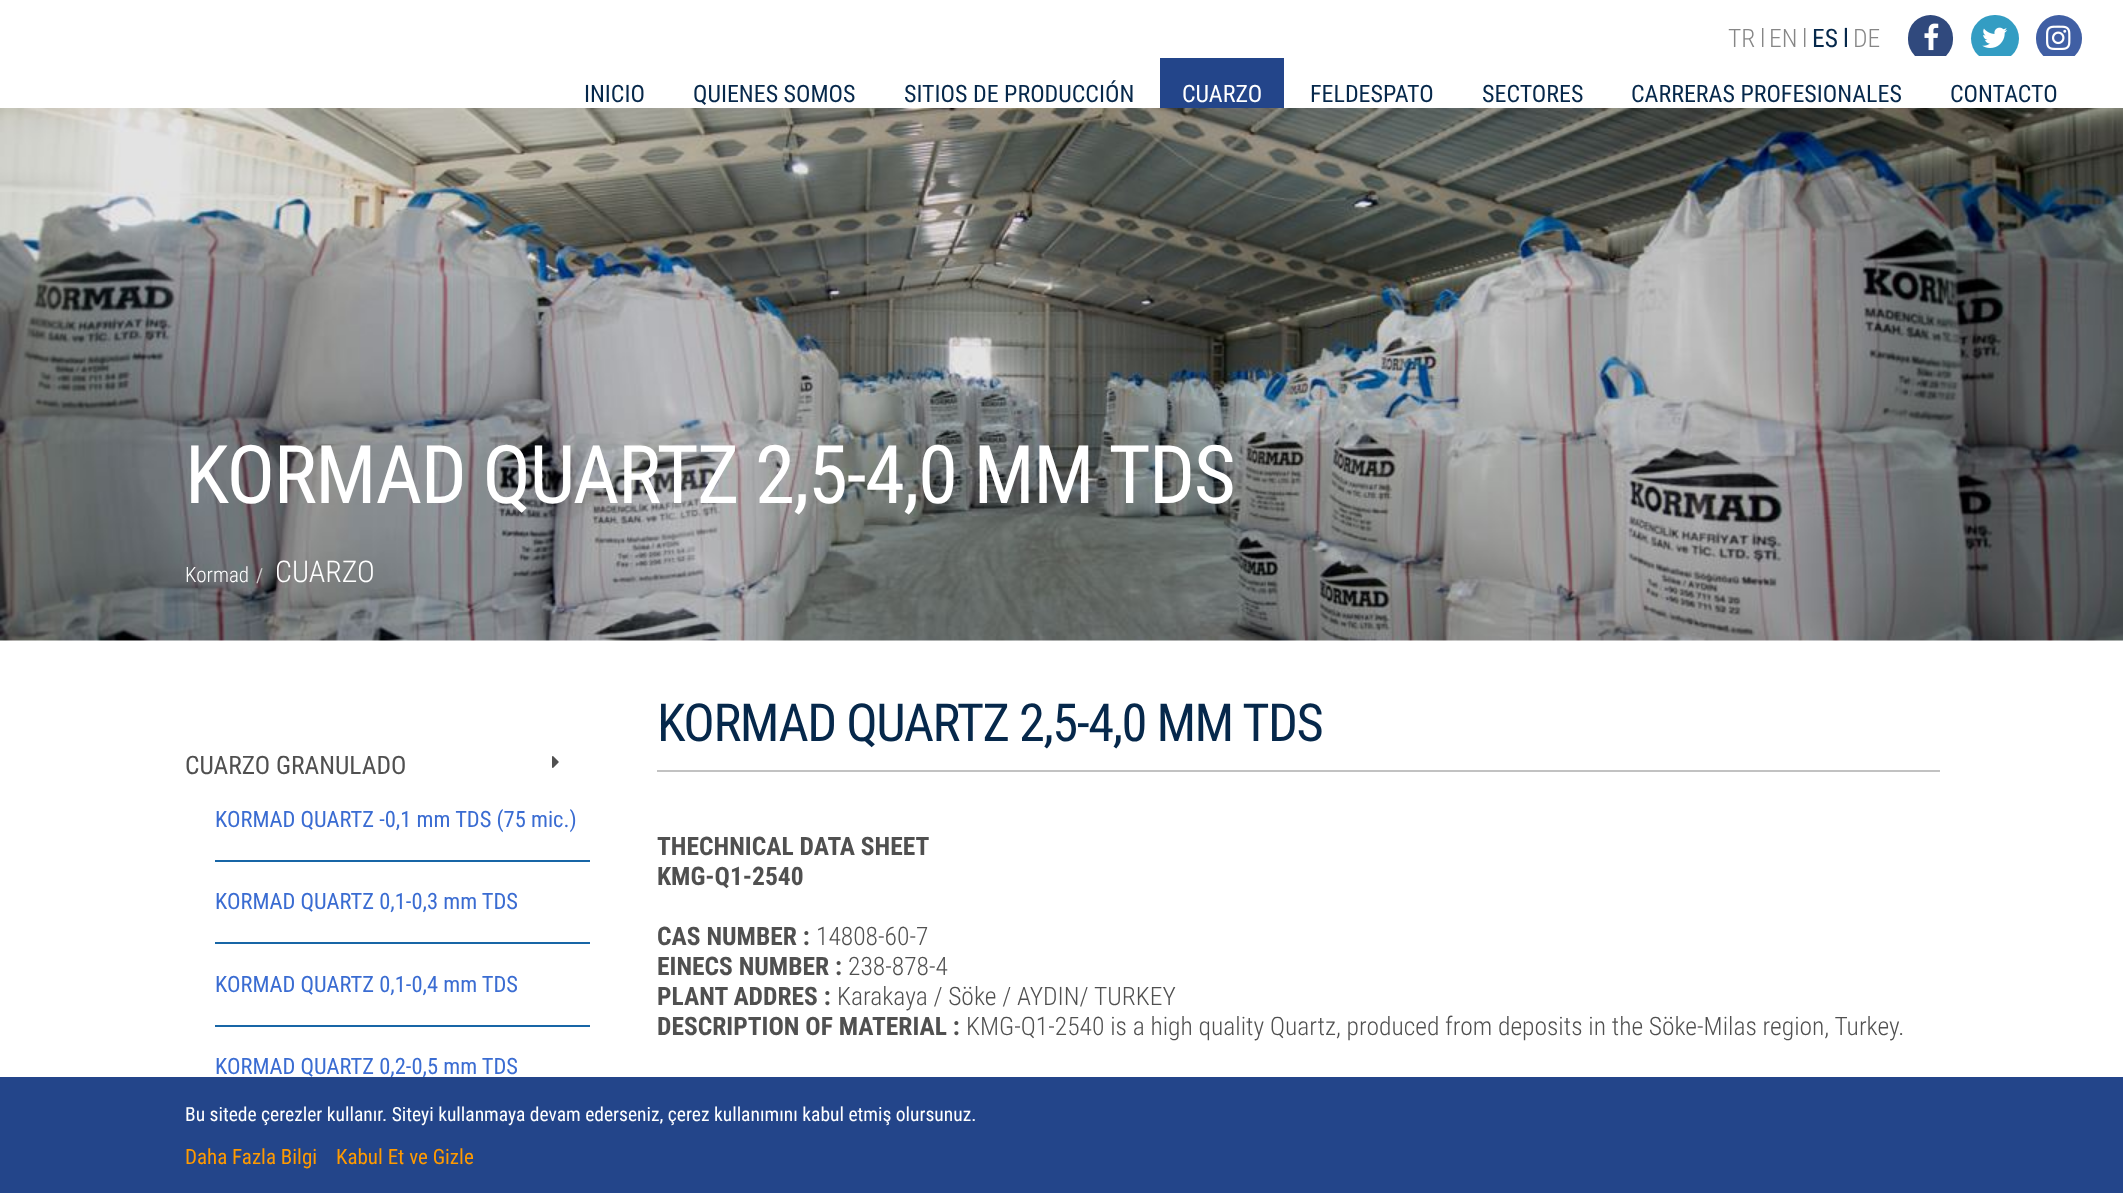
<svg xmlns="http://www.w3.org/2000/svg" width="2123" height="1193">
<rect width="100%" height="100%" fill="#fff"/>
<text x="1728" y="47" style="font-family:Roboto Condensed;font-size:25.5px;font-weight:300;fill:#868686">TR</text>
<text x="1760" y="47" style="font-family:Roboto Condensed;font-size:25.5px;font-weight:300;fill:#868686">l</text>
<text x="1769" y="47" style="font-family:Roboto Condensed;font-size:25.5px;font-weight:300;fill:#868686">EN</text>
<text x="1802" y="47" style="font-family:Roboto Condensed;font-size:25.5px;font-weight:300;fill:#868686">l</text>
<text x="1812" y="47" style="font-family:Roboto Condensed;font-size:25.5px;fill:#06284b">ES</text>
<text x="1843" y="47" style="font-family:Roboto Condensed;font-size:25.5px;fill:#06284b">l</text>
<text x="1853" y="47" style="font-family:Roboto Condensed;font-size:25.5px;font-weight:300;fill:#868686">DE</text>
<rect x="1908" y="15" width="45" height="47" rx="22.5" fill="#30497d"/>
<image x="1924" y="23" width="15" height="28" href="media/1.png"/>
<rect x="1971" y="15" width="48" height="47" rx="23.5" fill="#339dc3"/>
<image x="1982" y="27" width="26" height="21" href="media/2.png"/>
<rect x="2036" y="15" width="46" height="47" rx="23" fill="#405fa4"/>
<image x="2046" y="25" width="25" height="25" href="media/3.png"/>
<text x="584" y="102" style="font-family:Roboto Condensed;font-size:24px;fill:#06284b">INICIO</text>
<text x="693" y="102" style="font-family:Roboto Condensed;font-size:24px;fill:#06284b">QUIENES SOMOS</text>
<text x="904" y="102" style="font-family:Roboto Condensed;font-size:24px;fill:#06284b">SITIOS DE PRODUCCIÓN</text>
<rect x="1160" y="58" width="124" height="50" fill="#23458a"/>
<text x="1182" y="102" style="font-family:Roboto Condensed;font-size:24px;fill:#fff">CUARZO</text>
<text x="1310" y="102" style="font-family:Roboto Condensed;font-size:24px;fill:#06284b">FELDESPATO</text>
<text x="1482" y="102" style="font-family:Roboto Condensed;font-size:24px;fill:#06284b">SECTORES</text>
<text x="1631" y="102" style="font-family:Roboto Condensed;font-size:24px;fill:#06284b">CARRERAS PROFESIONALES</text>
<rect x="1915" y="56" width="160" height="6" fill="#fff"/>
<text x="1950" y="102" style="font-family:Roboto Condensed;font-size:24px;fill:#06284b">CONTACTO</text>
<image x="0" y="108" width="2123" height="533" href="media/4.png"/>
<text x="185" y="503" style="font-family:Roboto Condensed;font-size:81px;letter-spacing:-1.5px;fill:#fff">KORMAD QUARTZ 2,5-4,0 MM TDS</text>
<text x="185" y="582" style="font-family:Roboto Condensed;font-size:21px;font-weight:300;fill:#fff">Kormad</text>
<text x="256" y="582" style="font-family:Roboto Condensed;font-size:19.5px;fill:#ccc">/</text>
<text x="275" y="582" style="font-family:Roboto Condensed;font-size:30px;font-weight:300;fill:#fff">CUARZO</text>
<text x="185" y="774" style="font-family:Roboto Condensed;font-size:25.5px;fill:#505050">CUARZO GRANULADO</text>
<image x="552" y="756" width="7" height="12" href="media/5.png"/>
<rect x="215" y="860" width="375" height="2" fill="#1866a6"/>
<text x="215" y="827" style="font-family:Roboto Condensed;font-size:22.5px;fill:#3a6cd2">KORMAD QUARTZ -0,1 mm TDS (75 mic.)</text>
<rect x="215" y="942" width="375" height="2" fill="#1866a6"/>
<text x="215" y="909" style="font-family:Roboto Condensed;font-size:22.5px;fill:#3a6cd2">KORMAD QUARTZ 0,1-0,3 mm TDS</text>
<rect x="215" y="1025" width="375" height="2" fill="#1866a6"/>
<text x="215" y="992" style="font-family:Roboto Condensed;font-size:22.5px;fill:#3a6cd2">KORMAD QUARTZ 0,1-0,4 mm TDS</text>
<text x="215" y="1074" style="font-family:Roboto Condensed;font-size:22.5px;fill:#3a6cd2">KORMAD QUARTZ 0,2-0,5 mm TDS</text>
<rect x="657" y="770" width="1283" height="2" fill="#c2c2c2"/>
<text x="657" y="741" style="font-family:Roboto Condensed;font-size:52.5px;letter-spacing:-1.5px;fill:#06284b">KORMAD QUARTZ 2,5-4,0 MM TDS</text>
<text x="657" y="855" style="font-family:Roboto Condensed;font-size:25.5px;font-weight:bold;fill:#505050">THECHNICAL DATA SHEET</text>
<text x="657" y="885" style="font-family:Roboto Condensed;font-size:25.5px;font-weight:bold;fill:#505050">KMG-Q1-2540</text>
<text x="657" y="945" style="font-family:Roboto Condensed;font-size:25.5px;font-weight:bold;fill:#505050">CAS NUMBER :</text>
<text x="816" y="945" style="font-family:Roboto Condensed;font-size:25.5px;font-weight:300;fill:#505050">14808-60-7</text>
<text x="657" y="975" style="font-family:Roboto Condensed;font-size:25.5px;font-weight:bold;fill:#505050">EINECS NUMBER :</text>
<text x="848" y="975" style="font-family:Roboto Condensed;font-size:25.5px;font-weight:300;fill:#505050">238-878-4</text>
<text x="657" y="1005" style="font-family:Roboto Condensed;font-size:25.5px;font-weight:bold;fill:#505050">PLANT ADDRES :</text>
<text x="837" y="1005" style="font-family:Roboto Condensed;font-size:25.5px;font-weight:300;fill:#505050">Karakaya / Söke / AYDIN/ TURKEY</text>
<text x="657" y="1035" style="font-family:Roboto Condensed;font-size:25.5px;font-weight:bold;fill:#505050">DESCRIPTION OF MATERIAL :</text>
<text x="966" y="1035" style="font-family:Roboto Condensed;font-size:25.5px;font-weight:300;fill:#505050">KMG-Q1-2540 is a high quality Quartz, produced from deposits in the Söke-Milas region, Turkey.</text>
<rect y="1077" width="2123" height="116" fill="#23458a"/>
<text x="185" y="1121" style="font-family:Roboto Condensed;font-size:19.5px;fill:#fff">Bu sitede çerezler kullanır. Siteyi kullanmaya devam ederseniz, çerez kullanımını kabul etmiş olursunuz.</text>
<text x="185" y="1164" style="font-family:Roboto Condensed;font-size:21px;fill:#ff9a00">Daha Fazla Bilgi</text>
<text x="336" y="1164" style="font-family:Roboto Condensed;font-size:21px;fill:#ff9a00">Kabul Et ve Gizle</text>
</svg>
